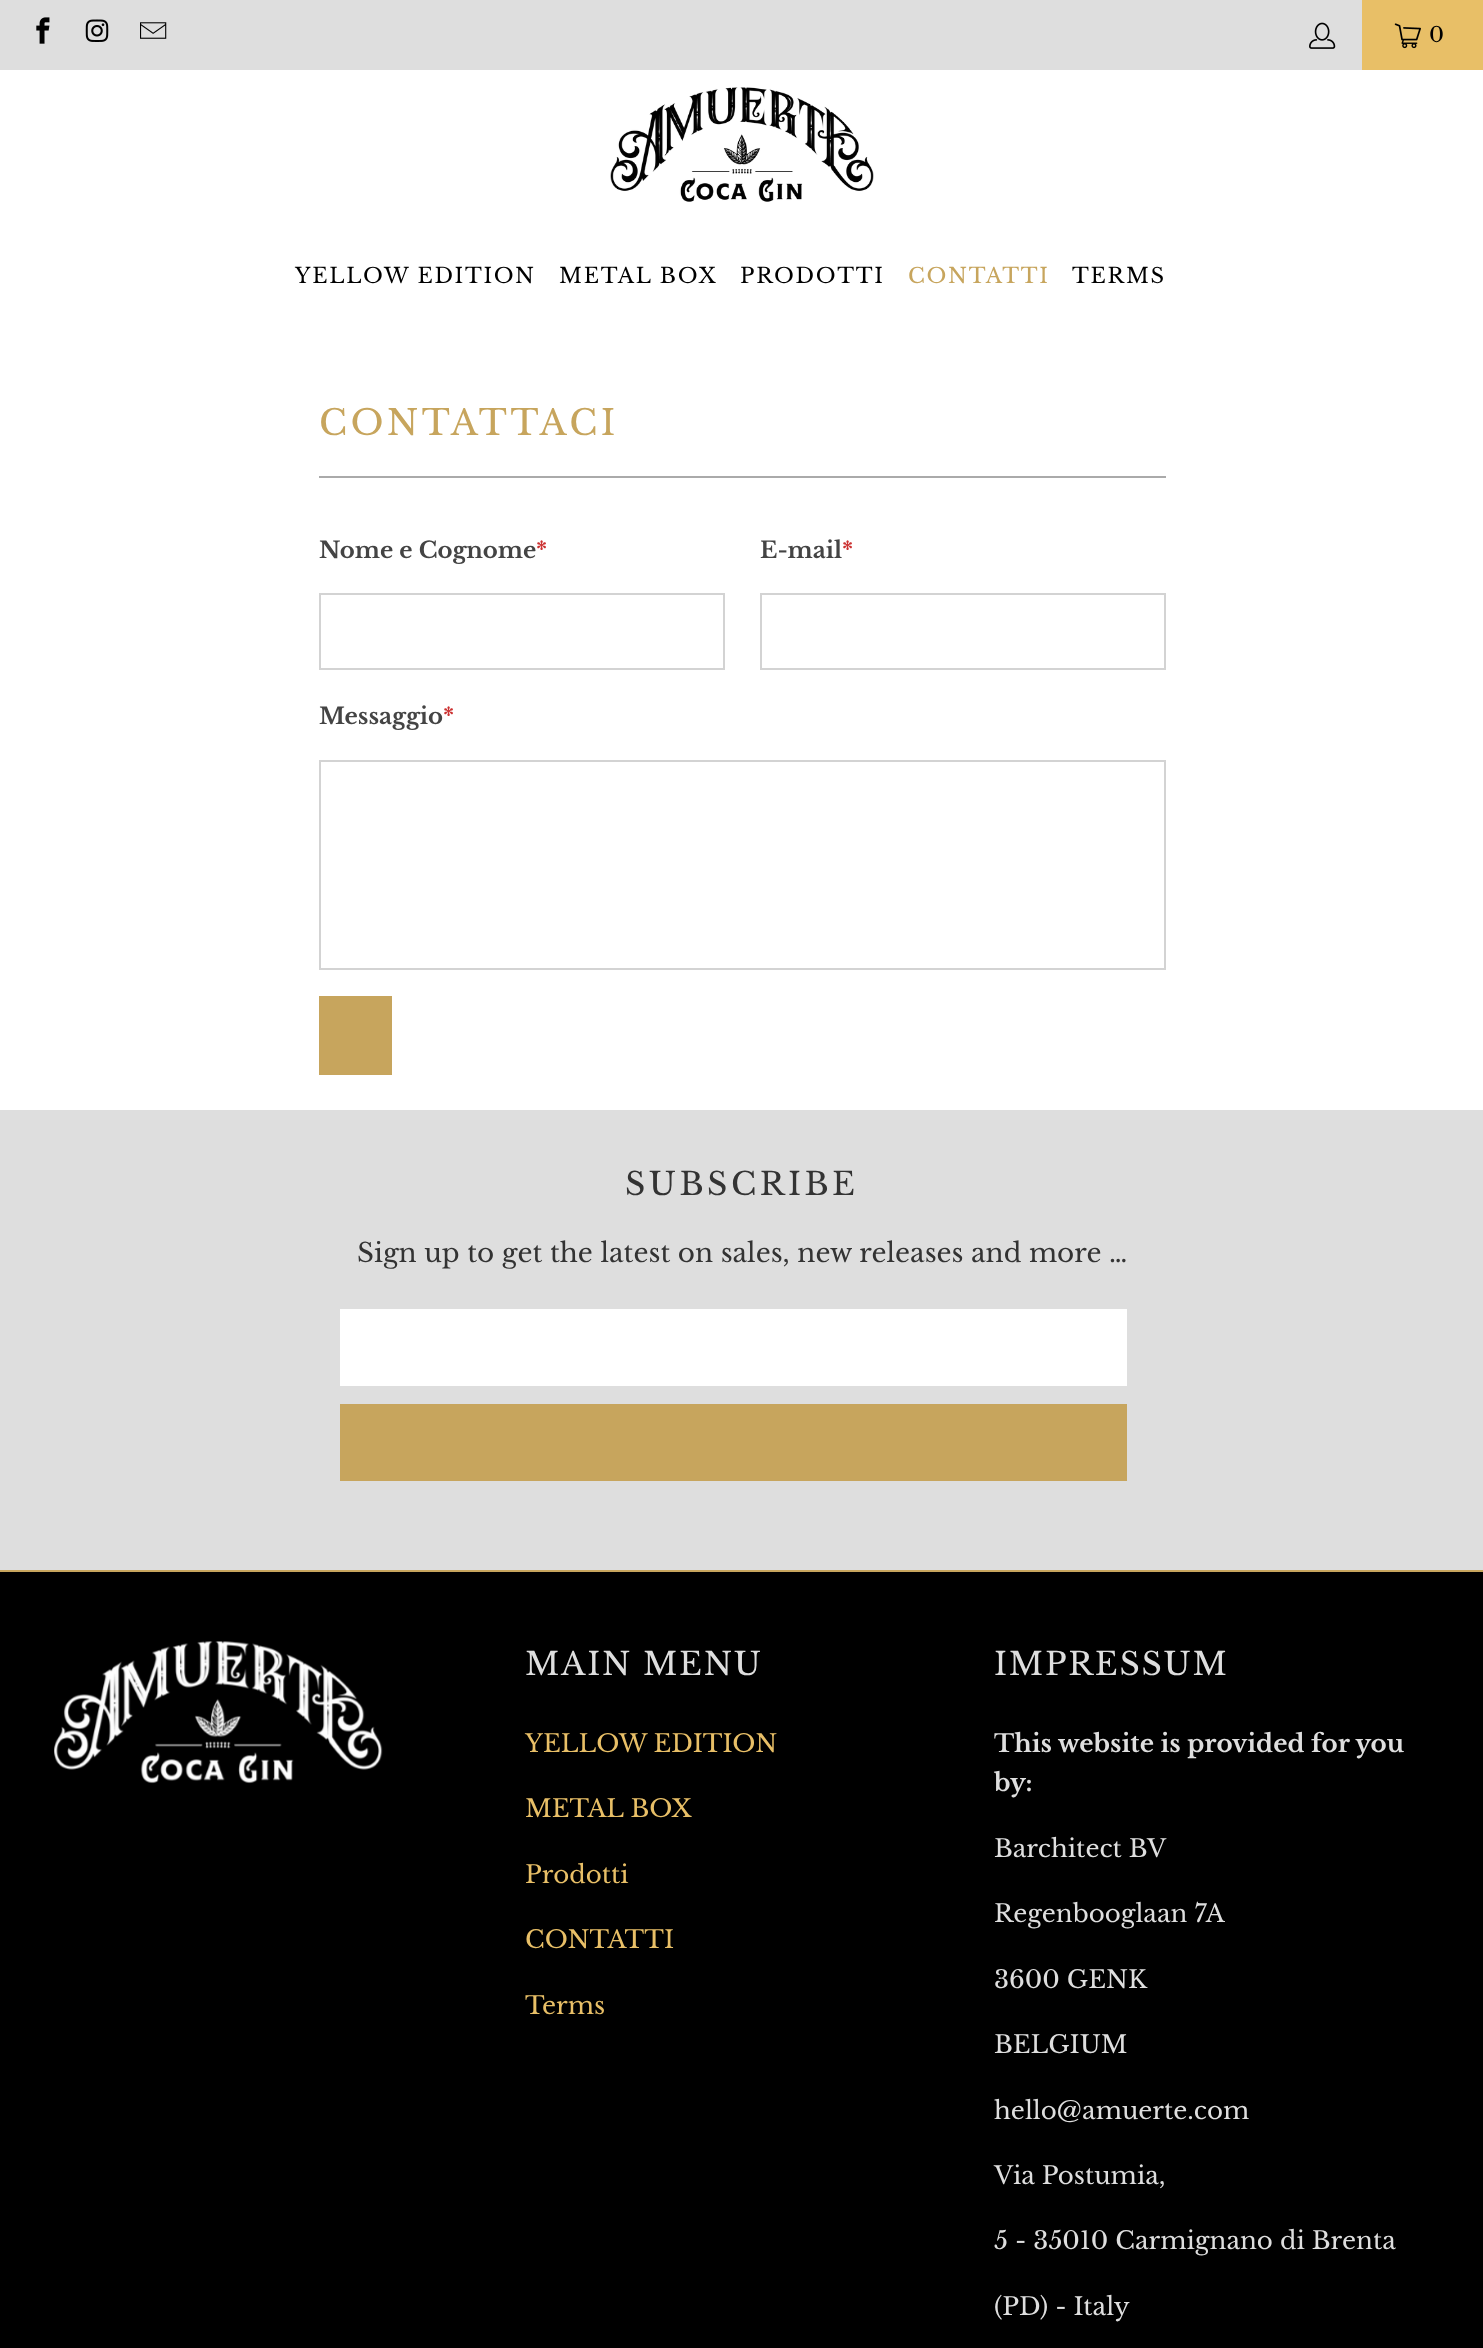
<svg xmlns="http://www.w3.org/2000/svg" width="1483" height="2348">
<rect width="100%" height="100%" fill="#fff"/>
<rect width="1362" height="70" fill="#dedede"/>
<image x="36" y="17" width="14" height="27" href="media/1.png"/>
<image x="85" y="19" width="24" height="23" href="media/2.png"/>
<image x="140" y="22" width="27" height="17" href="media/3.png"/>
<image x="1309" y="22" width="27" height="27" href="media/4.png"/>
<rect x="1362" width="121" height="70" fill="#e8bf67"/>
<image x="1394" y="23" width="27" height="26" href="media/5.png"/>
<text x="1429" y="42" style="font-family:Libre Baskerville;font-size:21px;letter-spacing:1.75px;fill:#000">0</text>
<image x="610" y="87" width="264" height="115" href="media/6.png"/>
<text x="295" y="283" style="font-family:Libre Baskerville;font-size:21px;letter-spacing:1.75px;fill:#000">YELLOW EDITION</text>
<text x="559" y="283" style="font-family:Libre Baskerville;font-size:21px;letter-spacing:1.75px;fill:#000">METAL BOX</text>
<text x="740" y="283" style="font-family:Libre Baskerville;font-size:21px;letter-spacing:1.75px;fill:#000">PRODOTTI</text>
<text x="908" y="283" style="font-family:Libre Baskerville;font-size:21px;letter-spacing:1.75px;fill:#c7a55d">CONTATTI</text>
<text x="1072" y="283" style="font-family:Libre Baskerville;font-size:21px;letter-spacing:1.75px;fill:#000">TERMS</text>
<text x="319" y="435" style="font-family:Libre Baskerville;font-size:35px;letter-spacing:3.5px;fill:#c7a55d">CONTATTACI</text>
<rect x="319" y="476" width="847" height="2" fill="#aaa"/>
<text x="319" y="558" style="font-family:Libre Baskerville;font-size:22.75px;font-weight:bold;fill:#444">Nome e Cognome</text>
<text x="536" y="558" style="font-family:Libre Baskerville;font-size:22.75px;font-weight:bold;fill:#c33">*</text>
<rect x="320" y="594" width="404" height="75" fill="none" stroke="#d3d3d3" stroke-width="2"/>
<text x="760" y="558" style="font-family:Libre Baskerville;font-size:22.75px;font-weight:bold;fill:#444">E-mail</text>
<text x="842" y="558" style="font-family:Libre Baskerville;font-size:22.75px;font-weight:bold;fill:#c33">*</text>
<rect x="761" y="594" width="404" height="75" fill="none" stroke="#d3d3d3" stroke-width="2"/>
<text x="319" y="724" style="font-family:Libre Baskerville;font-size:22.75px;font-weight:bold;fill:#444">Messaggio</text>
<text x="443" y="724" style="font-family:Libre Baskerville;font-size:22.75px;font-weight:bold;fill:#c33">*</text>
<rect x="320" y="761" width="845" height="208" fill="none" stroke="#d3d3d3" stroke-width="2"/>
<rect x="319" y="996" width="73" height="79" fill="#c7a55d"/>
<rect y="1110" width="1483" height="460" fill="#dedede"/>
<text x="625" y="1195" style="font-family:Libre Baskerville;font-size:31.5px;letter-spacing:3.5px;fill:#333">SUBSCRIBE</text>
<text x="357" y="1262" style="font-family:Libre Baskerville;font-size:26.25px;fill:#333">Sign up to get the latest on sales, new releases and more …</text>
<rect x="340" y="1309" width="787" height="77" fill="#fff"/>
<rect x="340" y="1404" width="787" height="77" fill="#c7a55d"/>
<rect y="1572" width="1483" height="776" fill="#000"/>
<rect y="1570" width="1483" height="2" fill="#c7a55d"/>
<image x="54" y="1641" width="329" height="143" href="media/7.png"/>
<text x="525" y="1675" style="font-family:Libre Baskerville;font-size:31.5px;letter-spacing:1.75px;fill:#dedede">MAIN MENU</text>
<text x="525" y="1752" style="font-family:Libre Baskerville;font-size:24.5px;fill:#e8bf67">YELLOW EDITION</text>
<text x="525" y="1817" style="font-family:Libre Baskerville;font-size:24.5px;fill:#e8bf67">METAL BOX</text>
<text x="525" y="1883" style="font-family:Libre Baskerville;font-size:24.5px;fill:#e8bf67">Prodotti</text>
<text x="525" y="1948" style="font-family:Libre Baskerville;font-size:24.5px;fill:#e8bf67">CONTATTI</text>
<text x="525" y="2014" style="font-family:Libre Baskerville;font-size:24.5px;fill:#e8bf67">Terms</text>
<text x="994" y="1675" style="font-family:Libre Baskerville;font-size:31.5px;letter-spacing:1.75px;fill:#dedede">IMPRESSUM</text>
<text x="994" y="1752" style="font-family:Libre Baskerville;font-size:24.5px;font-weight:bold;fill:#dedede">This website is provided for you</text>
<text x="994" y="1791" style="font-family:Libre Baskerville;font-size:24.5px;font-weight:bold;fill:#dedede">by:</text>
<text x="994" y="1857" style="font-family:Libre Baskerville;font-size:24.5px;fill:#dedede">Barchitect BV</text>
<text x="994" y="1922" style="font-family:Libre Baskerville;font-size:24.5px;fill:#dedede">Regenbooglaan 7A</text>
<text x="994" y="1988" style="font-family:Libre Baskerville;font-size:24.5px;fill:#dedede">3600 GENK</text>
<text x="994" y="2053" style="font-family:Libre Baskerville;font-size:24.5px;fill:#dedede">BELGIUM</text>
<text x="994" y="2119" style="font-family:Libre Baskerville;font-size:24.5px;fill:#dedede">hello@amuerte.com</text>
<text x="994" y="2184" style="font-family:Libre Baskerville;font-size:24.5px;fill:#dedede">Via Postumia,</text>
<text x="994" y="2249" style="font-family:Libre Baskerville;font-size:24.5px;fill:#dedede">5 - 35010 Carmignano di Brenta</text>
<text x="994" y="2315" style="font-family:Libre Baskerville;font-size:24.5px;fill:#dedede">(PD) - Italy</text>
</svg>
